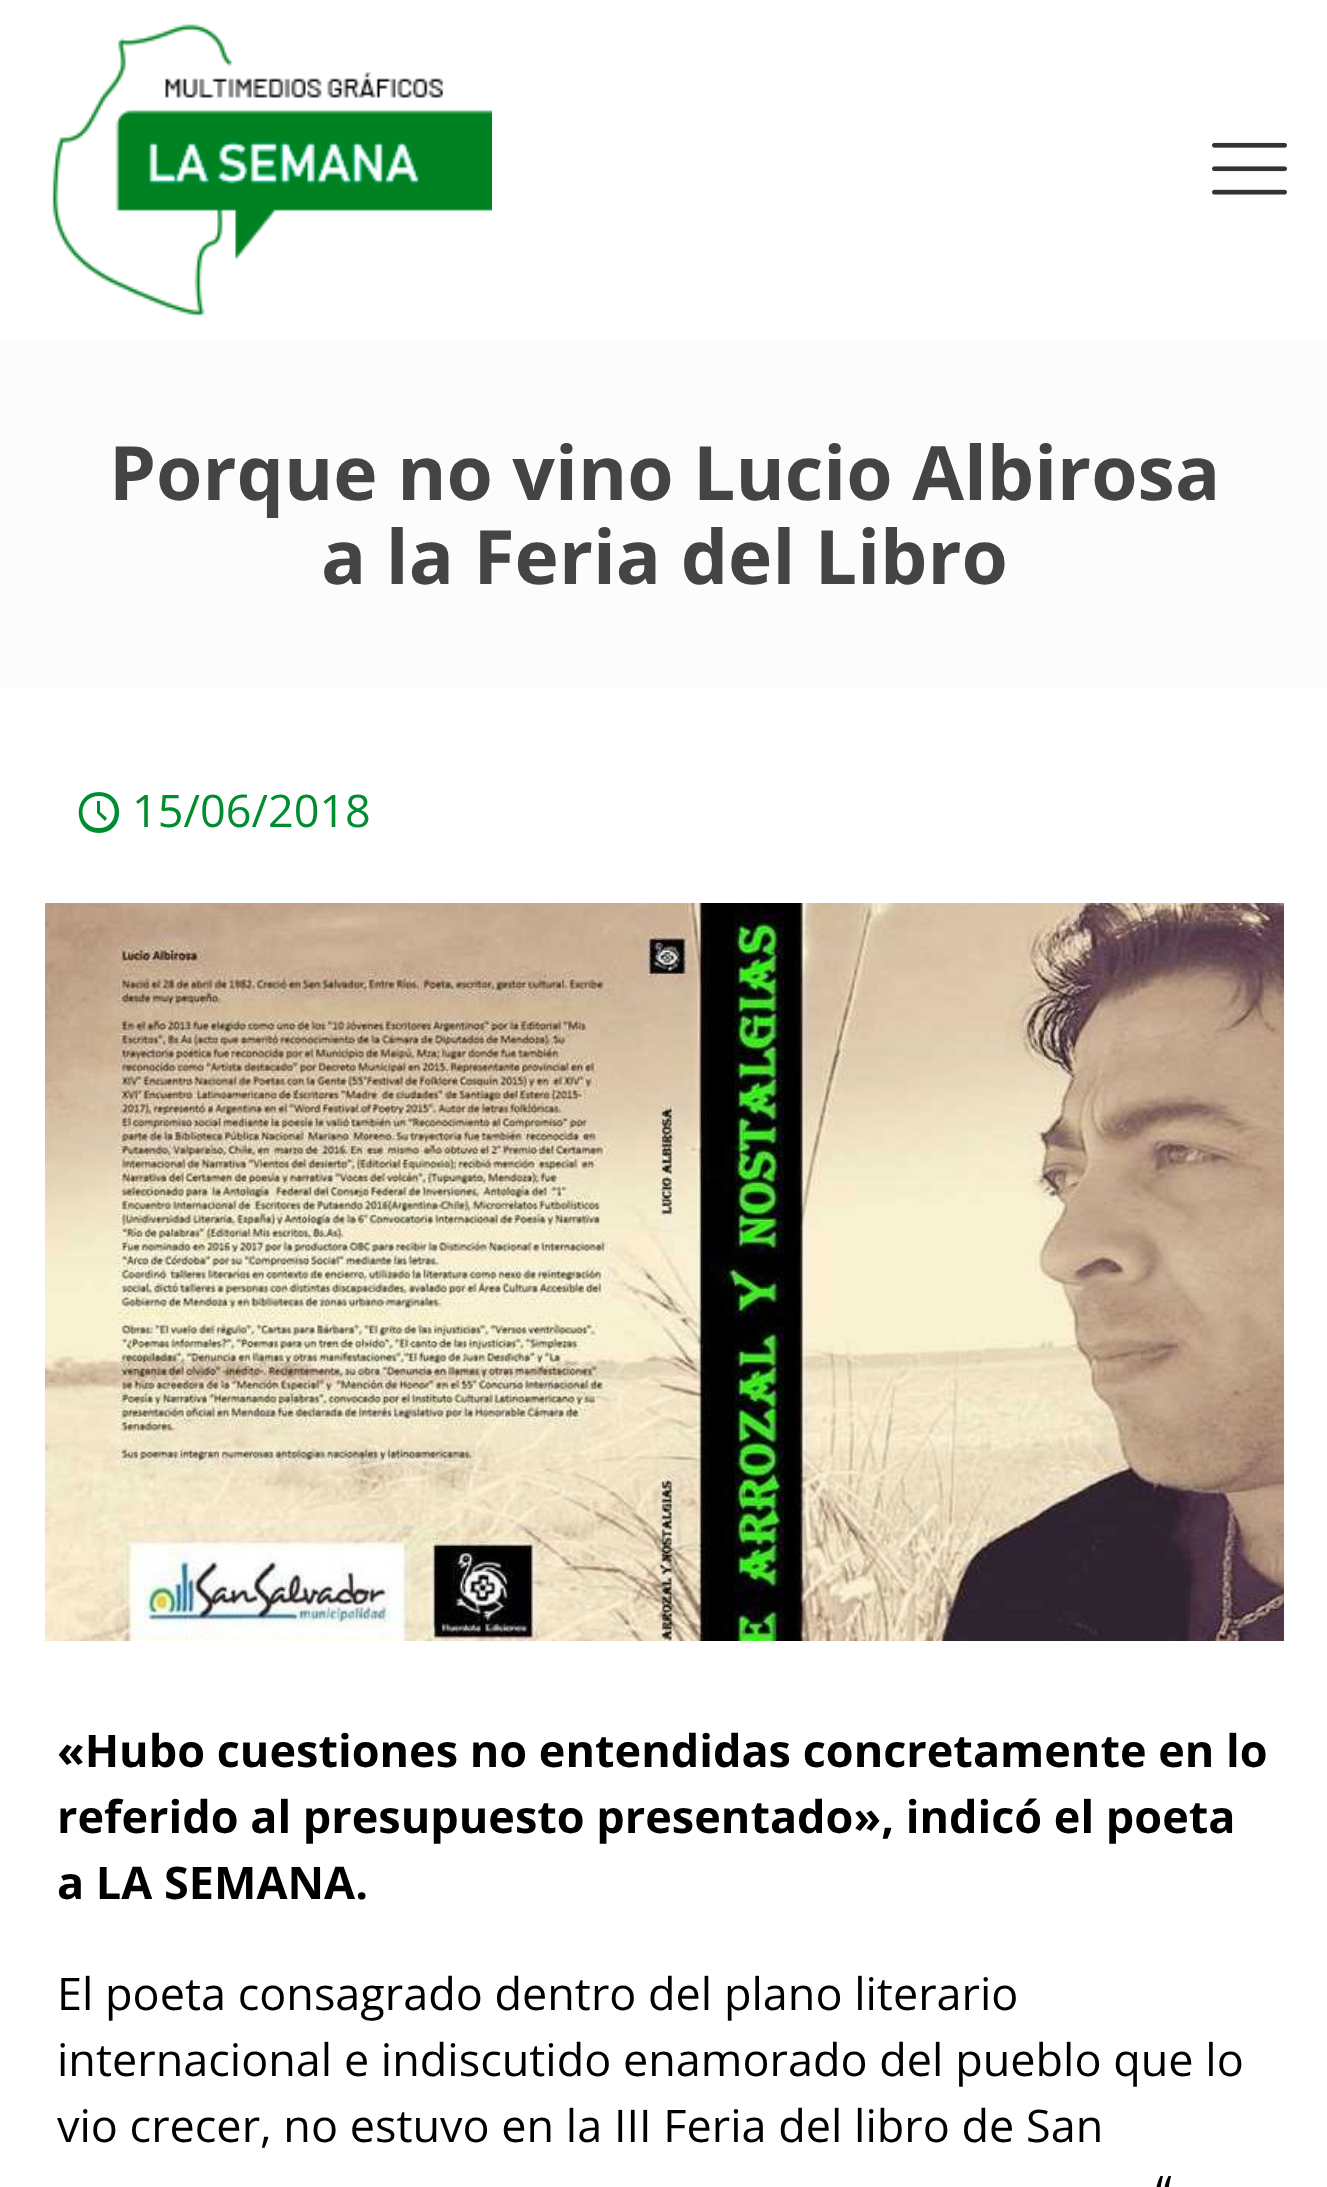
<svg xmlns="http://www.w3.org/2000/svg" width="1327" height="2187">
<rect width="100%" height="100%" fill="#fff"/>
<image x="52" y="24" width="440" height="293" href="media/1.png"/>
<image x="1212" y="142" width="75" height="53" href="media/2.png"/>
<rect y="339" width="1327" height="348" fill="#fcfcfc"/>
<text x="109" y="500" style="font-family:Open Sans;font-size:75px;font-weight:bold;fill:#444">Porque no vino Lucio Albirosa</text>
<text x="321" y="584" style="font-family:Open Sans;font-size:75px;font-weight:bold;fill:#444">a la Feria del Libro</text>
<path d="M99 792c27 0 27 41 0 41c-27 0-27-41 0-41zm0 36c21 0 21-32 0-32c-22 0-22 32 0 32zm1-27v11l7 6l-2 3l-8-8v-12z" fill="#008d2f"/>
<text x="132" y="827" style="font-family:Open Sans;font-size:45px;fill:#008d2f">15/06/2018</text>
<image x="45" y="903" width="1239" height="738" href="media/3.png"/>
<text x="57" y="1767" style="font-family:Open Sans;font-size:45px;font-weight:bold;fill:#000">«Hubo cuestiones no entendidas concretamente en lo</text>
<text x="57" y="1833" style="font-family:Open Sans;font-size:45px;font-weight:bold;fill:#000">referido al presupuesto presentado», indicó el poeta</text>
<text x="57" y="1899" style="font-family:Open Sans;font-size:45px;font-weight:bold;fill:#000">a LA SEMANA.</text>
<text x="57" y="2010" style="font-family:Open Sans;font-size:45px;fill:#000">El poeta consagrado dentro del plano literario</text>
<text x="57" y="2076" style="font-family:Open Sans;font-size:45px;fill:#000">internacional e indiscutido enamorado del pueblo que lo</text>
<text x="57" y="2142" style="font-family:Open Sans;font-size:45px;fill:#000">vio crecer, no estuvo en la III Feria del libro de San</text>
<text x="1156" y="2208" style="font-family:Open Sans;font-size:45px;fill:#000">“</text>
</svg>
